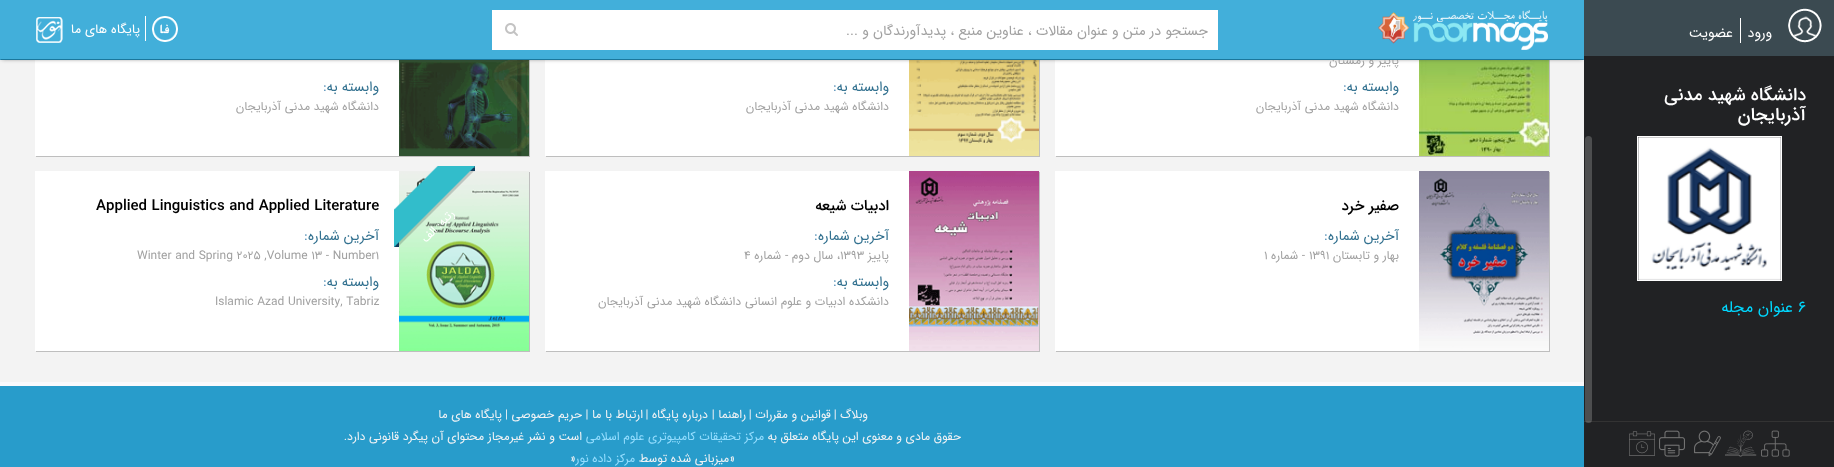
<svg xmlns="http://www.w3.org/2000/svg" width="1834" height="467">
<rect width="100%" height="100%" fill="#f9f9fc"/>
<rect y="60" width="1584" height="322" fill="#f3f3f3"/>
<rect x="1056" y="-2" width="494" height="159" fill="#bebebe" filter="blur(0.5px)"/>
<rect x="1055" y="60" width="364" height="96" fill="#fff"/>
<image x="1419" y="60" width="130" height="96" href="media/12.png"/>
<rect x="546" y="-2" width="494" height="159" fill="#bebebe" filter="blur(0.5px)"/>
<rect x="545" y="60" width="364" height="96" fill="#fff"/>
<image x="909" y="60" width="130" height="96" href="media/13.png"/>
<rect x="36" y="-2" width="494" height="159" fill="#bebebe" filter="blur(0.5px)"/>
<rect x="35" y="60" width="364" height="96" fill="#fff"/>
<image x="399" y="60" width="130" height="96" href="media/14.png"/>
<rect x="2" y="2" width="1580" height="56" fill="#333" filter="blur(2.5px)"/>
<rect x="1584" y="56" width="250" height="411" fill="#212224"/>
<rect x="1584" width="250" height="56" fill="#3b4a51"/>
<image x="1788" y="8" width="34" height="35" href="media/1.png"/>
<text x="1772" y="37" style="font-family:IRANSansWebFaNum;font-size:14px;direction:rtl;fill:#fff">ورود</text>
<rect x="1740" y="18" width="1" height="25" fill="#fff"/>
<text x="1733" y="37" style="font-family:IRANSansWebFaNum;font-size:14px;direction:rtl;fill:#fff">عضویت</text>
<text x="1806" y="100" style="font-family:IRANSansWebFaNum;font-size:18px;font-weight:500;direction:rtl;fill:#fff">دانشگاه شهید مدنی</text>
<text x="1806" y="120" style="font-family:IRANSansWebFaNum;font-size:18px;font-weight:500;direction:rtl;fill:#fff">آذربایجان</text>
<rect x="1584" y="421" width="250" height="1" fill="#333"/>
<rect x="1637.5" y="136.5" width="144" height="144" fill="none" stroke="#fff"/>
<image x="1638" y="137" width="143" height="143" href="media/2.png"/>
<text x="1798" y="312" style="font-family:IRANSansWebFaNum;font-size:16px;fill:#00d8ff">6</text>
<text x="1793" y="312" style="font-family:IRANSansWebFaNum;font-size:16px;direction:rtl;fill:#00d8ff">عنوان مجله</text>
<rect x="1585" y="136" width="7" height="287" rx="3.5" fill="#ffffff33"/>
<image x="1761" y="430" width="29" height="27" href="media/3.png"/>
<image x="1725" y="430" width="32" height="27" href="media/4.png"/>
<image x="1694" y="430" width="27" height="27" href="media/5.png"/>
<image x="1659" y="430" width="26" height="27" href="media/6.png"/>
<image x="1629" y="431" width="26" height="25" href="media/7.png"/>
<text x="1399" y="64" style="font-family:IRANSansWebFaNum;font-size:12px;direction:rtl;fill:#a1a1a1">پاییز و زمستان</text>
<rect width="1584" height="60" fill="#42afda"/>
<path d="M1584 60h-1584l1-1h1582z" fill="#1b779c"/>
<image x="1378" y="10" width="170" height="40" href="media/8.png"/>
<rect x="492" y="10" width="726" height="40" fill="#fff"/>
<image x="505" y="23" width="13" height="13" href="media/9.png"/>
<text x="1208" y="35" style="font-family:IRANSansWebFaNum;font-size:14px;direction:rtl;fill:#a1a1a1">جستجو در متن و عنوان مقالات ، عناوین منبع ، پدیدآورندگان و ...</text>
<image x="152" y="16" width="26" height="26" href="media/10.png"/>
<rect x="145" y="16" width="1" height="25" fill="#fff"/>
<text x="140" y="33" style="font-family:IRANSansWebFaNum;font-size:13px;direction:rtl;fill:#fff">پایگاه های ما</text>
<image x="36" y="17" width="27" height="26" href="media/11.png"/>
<text x="1399" y="91" style="font-family:IRANSansWebFaNum;font-size:14px;direction:rtl;fill:#31708f">وابسته به</text>
<text x="1343" y="91" style="font-family:IRANSansWebFaNum;font-size:14px;fill:#5590b8">:</text>
<text x="1399" y="110" style="font-family:IRANSansWebFaNum;font-size:12px;direction:rtl;fill:#a1a1a1">دانشگاه شهید مدنی آذربایجان</text>
<text x="889" y="91" style="font-family:IRANSansWebFaNum;font-size:14px;direction:rtl;fill:#31708f">وابسته به</text>
<text x="833" y="91" style="font-family:IRANSansWebFaNum;font-size:14px;fill:#5590b8">:</text>
<text x="889" y="110" style="font-family:IRANSansWebFaNum;font-size:12px;direction:rtl;fill:#a1a1a1">دانشگاه شهید مدنی آذربایجان</text>
<text x="379" y="91" style="font-family:IRANSansWebFaNum;font-size:14px;direction:rtl;fill:#31708f">وابسته به</text>
<text x="323" y="91" style="font-family:IRANSansWebFaNum;font-size:14px;fill:#5590b8">:</text>
<text x="379" y="110" style="font-family:IRANSansWebFaNum;font-size:12px;direction:rtl;fill:#a1a1a1">دانشگاه شهید مدنی آذربایجان</text>
<rect x="1056" y="172" width="494" height="180" fill="#bebebe" filter="blur(0.5px)"/>
<rect x="1055" y="171" width="364" height="180" fill="#fff"/>
<image x="1419" y="171" width="130" height="180" href="media/15.png"/>
<text x="1399" y="210" style="font-family:IRANSansWebFaNum;font-size:15px;font-weight:500;direction:rtl;fill:#000">صفیر خرد</text>
<text x="1399" y="240" style="font-family:IRANSansWebFaNum;font-size:14px;direction:rtl;fill:#31708f">آخرین شماره</text>
<text x="1324" y="240" style="font-family:IRANSansWebFaNum;font-size:14px;fill:#5590b8">:</text>
<text x="1399" y="259" style="font-family:IRANSansWebFaNum;font-size:12px;direction:rtl;fill:#a1a1a1">بهار و تابستان</text>
<text x="1309" y="259" style="font-family:IRANSansWebFaNum;font-size:12px;fill:#a1a1a1">1391</text>
<text x="1305" y="259" style="font-family:IRANSansWebFaNum;font-size:12px;direction:rtl;fill:#a1a1a1">- شماره</text>
<text x="1264" y="259" style="font-family:IRANSansWebFaNum;font-size:12px;fill:#a1a1a1">1</text>
<rect x="546" y="172" width="494" height="180" fill="#bebebe" filter="blur(0.5px)"/>
<rect x="545" y="171" width="364" height="180" fill="#fff"/>
<image x="909" y="171" width="130" height="180" href="media/16.png"/>
<text x="889" y="210" style="font-family:IRANSansWebFaNum;font-size:15px;font-weight:500;direction:rtl;fill:#000">ادبیات شیعه</text>
<text x="889" y="240" style="font-family:IRANSansWebFaNum;font-size:14px;direction:rtl;fill:#31708f">آخرین شماره</text>
<text x="814" y="240" style="font-family:IRANSansWebFaNum;font-size:14px;fill:#5590b8">:</text>
<text x="889" y="259" style="font-family:IRANSansWebFaNum;font-size:12px;direction:rtl;fill:#a1a1a1">پاییز</text>
<text x="840" y="259" style="font-family:IRANSansWebFaNum;font-size:12px;fill:#a1a1a1">1393</text>
<text x="840" y="259" style="font-family:IRANSansWebFaNum;font-size:12px;direction:rtl;fill:#a1a1a1">، سال دوم - شماره</text>
<text x="744" y="259" style="font-family:IRANSansWebFaNum;font-size:12px;fill:#a1a1a1">4</text>
<text x="889" y="286" style="font-family:IRANSansWebFaNum;font-size:14px;direction:rtl;fill:#31708f">وابسته به</text>
<text x="833" y="286" style="font-family:IRANSansWebFaNum;font-size:14px;fill:#5590b8">:</text>
<text x="889" y="305" style="font-family:IRANSansWebFaNum;font-size:12px;direction:rtl;fill:#a1a1a1">دانشكده ادبيات و علوم انساني دانشگاه شهيد مدني آذربايجان</text>
<rect x="36" y="172" width="494" height="180" fill="#bebebe" filter="blur(0.5px)"/>
<rect x="35" y="171" width="364" height="180" fill="#fff"/>
<image x="399" y="171" width="130" height="180" href="media/17.png"/>
<image x="394" y="166" width="81" height="81" href="media/18.png"/>
<text x="455" y="214" transform="rotate(-45 455 214)" style="font-family:IRANSansWebFaNum;font-size:12px;direction:rtl;fill:#fff">رتبه: الف</text>
<text x="96" y="210" style="font-family:IRANSansWebFaNum;font-size:15px;font-weight:500;fill:#000">Applied Linguistics and Applied Literature</text>
<text x="379" y="240" style="font-family:IRANSansWebFaNum;font-size:14px;direction:rtl;fill:#31708f">آخرین شماره</text>
<text x="304" y="240" style="font-family:IRANSansWebFaNum;font-size:14px;fill:#5590b8">:</text>
<text x="137" y="259" style="font-family:IRANSansWebFaNum;font-size:12px;fill:#a1a1a1">Winter and Spring 2025 ,Volume 13 - Number1</text>
<text x="379" y="286" style="font-family:IRANSansWebFaNum;font-size:14px;direction:rtl;fill:#31708f">وابسته به</text>
<text x="323" y="286" style="font-family:IRANSansWebFaNum;font-size:14px;fill:#5590b8">:</text>
<text x="215" y="305" style="font-family:IRANSansWebFaNum;font-size:12px;fill:#a1a1a1">Islamic Azad University, Tabriz</text>
<rect y="386" width="1584" height="81" fill="#289ccb"/>
<text x="868" y="418" style="font-family:IRANSansWebFaNum;font-size:12px;direction:rtl;fill:#f2f3f5">وبلاگ |</text>
<text x="831" y="418" style="font-family:IRANSansWebFaNum;font-size:12px;direction:rtl;fill:#f2f3f5">قوانین و مقررات |</text>
<text x="746" y="418" style="font-family:IRANSansWebFaNum;font-size:12px;direction:rtl;fill:#f2f3f5">راهنما |</text>
<text x="708" y="418" style="font-family:IRANSansWebFaNum;font-size:12px;direction:rtl;fill:#f2f3f5">درباره پایگاه |</text>
<text x="643" y="418" style="font-family:IRANSansWebFaNum;font-size:12px;direction:rtl;fill:#f2f3f5">ارتباط با ما |</text>
<text x="582" y="418" style="font-family:IRANSansWebFaNum;font-size:12px;direction:rtl;fill:#f2f3f5">حریم خصوصی |</text>
<text x="502" y="418" style="font-family:IRANSansWebFaNum;font-size:12px;direction:rtl;fill:#f2f3f5">پایگاه های ما</text>
<text x="961" y="440" style="font-family:IRANSansWebFaNum;font-size:12px;direction:rtl;fill:#f2f3f5">حقوق مادی و معنوی اين پايگاه متعلق به</text>
<text x="764" y="440" style="font-family:IRANSansWebFaNum;font-size:12px;direction:rtl;fill:#95deff">مرکز تحقیقات کامپیوتری علوم اسلامی</text>
<text x="582" y="440" style="font-family:IRANSansWebFaNum;font-size:12px;direction:rtl;fill:#f2f3f5">است و نشر غیرمجاز محتوای آن پیگرد قانونی دارد.</text>
<text x="735" y="462" style="font-family:IRANSansWebFaNum;font-size:12px;direction:rtl;fill:#f2f3f5">«میزبانی شده توسط</text>
<text x="635" y="462" style="font-family:IRANSansWebFaNum;font-size:12px;direction:rtl;fill:#95deff">مرکز داده نور</text>
<text x="570" y="462" style="font-family:IRANSansWebFaNum;font-size:12px;fill:#f2f3f5">»</text>
</svg>
